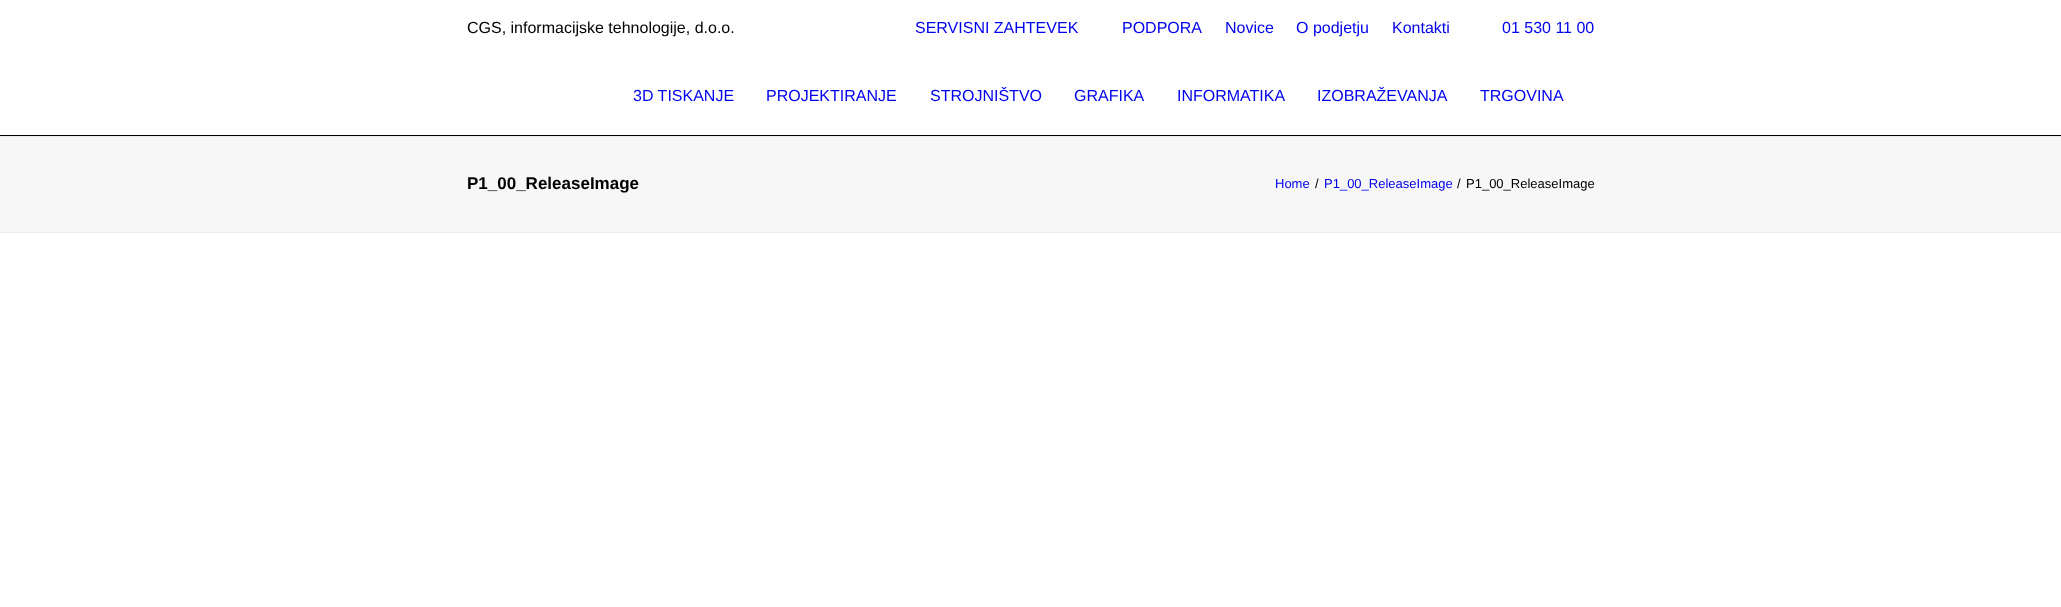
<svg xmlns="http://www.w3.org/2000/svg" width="2061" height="607">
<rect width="100%" height="100%" fill="#fff"/>
<text x="467" y="33" style="font-family:Liberation Sans;font-size:16px;fill:#000">CGS, informacijske tehnologije, d.o.o.</text>
<text x="915" y="33" style="font-family:Liberation Sans;font-size:16px;fill:#00e">SERVISNI ZAHTEVEK</text>
<text x="1122" y="33" style="font-family:Liberation Sans;font-size:16px;fill:#00e">PODPORA</text>
<text x="1225" y="33" style="font-family:Liberation Sans;font-size:16px;fill:#00e">Novice</text>
<text x="1296" y="33" style="font-family:Liberation Sans;font-size:16px;fill:#00e">O podjetju</text>
<text x="1392" y="33" style="font-family:Liberation Sans;font-size:16px;fill:#00e">Kontakti</text>
<text x="1502" y="33" style="font-family:Liberation Sans;font-size:16px;fill:#00e">01 530 11 00</text>
<rect y="135" width="2061" height="1" fill="#000"/>
<text x="633" y="101" style="font-family:Liberation Sans;font-size:16px;fill:#00e">3D TISKANJE</text>
<text x="766" y="101" style="font-family:Liberation Sans;font-size:16px;fill:#00e">PROJEKTIRANJE</text>
<text x="930" y="101" style="font-family:Liberation Sans;font-size:16px;fill:#00e">STROJNIŠTVO</text>
<text x="1074" y="101" style="font-family:Liberation Sans;font-size:16px;fill:#00e">GRAFIKA</text>
<text x="1177" y="101" style="font-family:Liberation Sans;font-size:16px;fill:#00e">INFORMATIKA</text>
<text x="1317" y="101" style="font-family:Liberation Sans;font-size:16px;fill:#00e">IZOBRAŽEVANJA</text>
<text x="1480" y="101" style="font-family:Liberation Sans;font-size:16px;fill:#00e">TRGOVINA</text>
<rect y="137" width="2061" height="95" fill="#f7f7f7"/>
<rect y="136" width="2061" height="1" fill="#eaeaea"/>
<rect y="232" width="2061" height="1" fill="#eaeaea"/>
<text x="467" y="189" style="font-family:Liberation Sans;font-size:17px;font-weight:bold;fill:#000">P1_00_ReleaseImage</text>
<text x="1275" y="188" style="font-family:Liberation Sans;font-size:13px;fill:#00e">Home</text>
<text x="1315" y="188" style="font-family:Liberation Sans;font-size:13px;fill:#000">/</text>
<text x="1324" y="188" style="font-family:Liberation Sans;font-size:13px;fill:#00e">P1_00_ReleaseImage</text>
<text x="1457" y="188" style="font-family:Liberation Sans;font-size:13px;fill:#000">/</text>
<text x="1466" y="188" style="font-family:Liberation Sans;font-size:13px;fill:#000">P1_00_ReleaseImage</text>
</svg>
